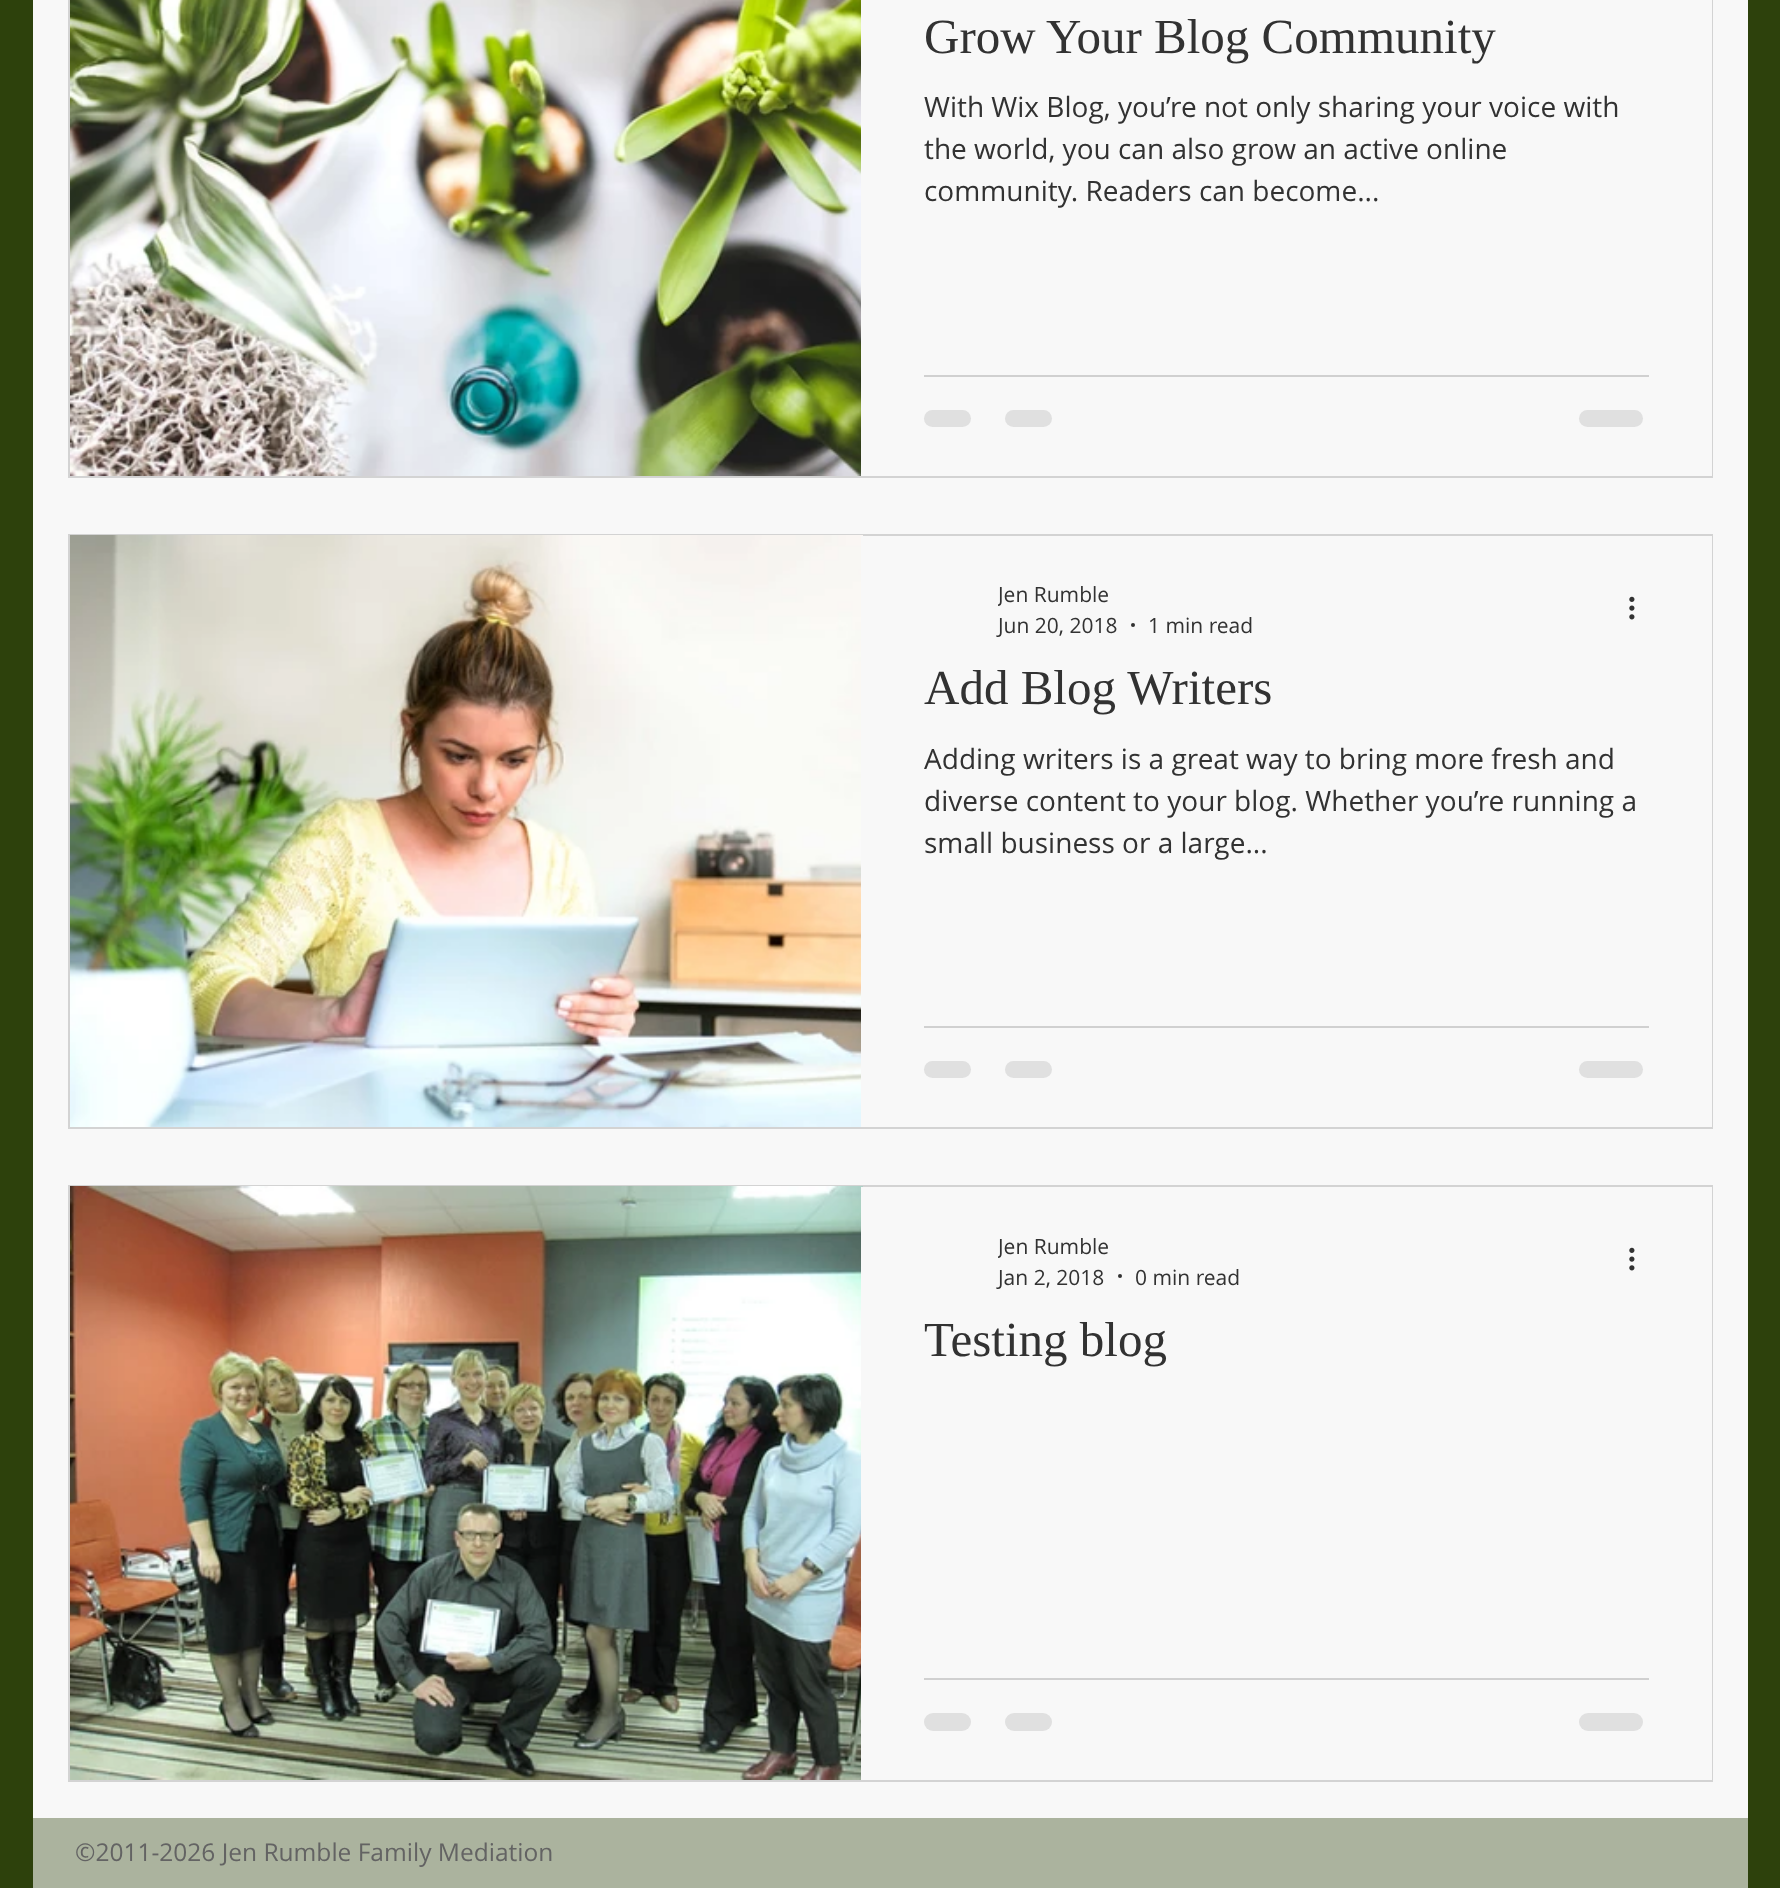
<svg xmlns="http://www.w3.org/2000/svg" width="1780" height="1888">
<defs>
<clipPath id="clip1"><rect x="998" y="579" width="112" height="28"/></clipPath>
<clipPath id="clip2"><rect x="998" y="1232" width="112" height="28"/></clipPath>
</defs>
<rect width="100%" height="100%" fill="#2d410c"/>
<rect x="33" width="1715" height="1818" fill="#f8f8f8"/>
<rect x="69" y="-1" width="1643" height="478" fill="none" stroke="#d3d3d3" stroke-width="2"/>
<image x="70" y="0" width="791" height="476" href="media/1.png"/>
<rect x="1711" width="1" height="476" fill="#f8f8f8"/>
<text x="924" y="53" style="font-family:Liberation Serif;font-size:49px;fill:#323232">Grow Your Blog Community</text>
<text x="924" y="117" style="font-family:Open Sans;font-size:28px;fill:#323232">With Wix Blog, you’re not only sharing your voice with</text>
<text x="924" y="159" style="font-family:Open Sans;font-size:28px;fill:#323232">the world, you can also grow an active online</text>
<text x="924" y="201" style="font-family:Open Sans;font-size:28px;fill:#323232">community. Readers can become...</text>
<rect x="924" y="375" width="725" height="2" fill="#d0d0d0"/>
<rect x="924" y="410" width="47" height="17" rx="8.5" fill="#e0e0e0"/>
<rect x="1005" y="410" width="47" height="17" rx="8.5" fill="#e0e0e0"/>
<rect x="1579" y="410" width="64" height="17" rx="8.5" fill="#e0e0e0"/>
<rect x="69" y="535" width="1643" height="593" fill="none" stroke="#d3d3d3" stroke-width="2"/>
<image x="70" y="535" width="793" height="592" href="media/2.png"/>
<rect x="861" y="536" width="851" height="591" fill="#f8f8f8"/>
<g clip-path="url(#clip1)">
<text x="998" y="602" style="font-family:Open Sans;font-size:21px;fill:#323232">Jen Rumble</text>
</g>
<text x="998" y="633" style="font-family:Open Sans;font-size:21px;fill:#323232">Jun 20, 2018</text>
<circle cx="1133" cy="625" r="2" fill="#323232"/>
<text x="1148" y="633" style="font-family:Open Sans;font-size:21px;fill:#323232">1 min read</text>
<image x="1629" y="596" width="6" height="24" href="media/3.png"/>
<text x="924" y="704" style="font-family:Liberation Serif;font-size:49px;fill:#323232">Add Blog Writers</text>
<text x="924" y="769" style="font-family:Open Sans;font-size:28px;fill:#323232">Adding writers is a great way to bring more fresh and</text>
<text x="924" y="811" style="font-family:Open Sans;font-size:28px;fill:#323232">diverse content to your blog. Whether you’re running a</text>
<text x="924" y="853" style="font-family:Open Sans;font-size:28px;fill:#323232">small business or a large...</text>
<rect x="924" y="1026" width="725" height="2" fill="#d0d0d0"/>
<rect x="924" y="1061" width="47" height="17" rx="8.5" fill="#e0e0e0"/>
<rect x="1005" y="1061" width="47" height="17" rx="8.5" fill="#e0e0e0"/>
<rect x="1579" y="1061" width="64" height="17" rx="8.5" fill="#e0e0e0"/>
<rect x="69" y="1186" width="1643" height="595" fill="none" stroke="#d3d3d3" stroke-width="2"/>
<image x="70" y="1186" width="793" height="594" href="media/4.png"/>
<rect x="861" y="1187" width="851" height="593" fill="#f8f8f8"/>
<g clip-path="url(#clip2)">
<text x="998" y="1254" style="font-family:Open Sans;font-size:21px;fill:#323232">Jen Rumble</text>
</g>
<text x="998" y="1285" style="font-family:Open Sans;font-size:21px;fill:#323232">Jan 2, 2018</text>
<circle cx="1120" cy="1276" r="2" fill="#323232"/>
<text x="1135" y="1285" style="font-family:Open Sans;font-size:21px;fill:#323232">0 min read</text>
<image x="1629" y="1247" width="6" height="24" href="media/3.png"/>
<text x="924" y="1356" style="font-family:Liberation Serif;font-size:49px;fill:#323232">Testing blog</text>
<rect x="924" y="1678" width="725" height="2" fill="#d0d0d0"/>
<rect x="924" y="1713" width="47" height="18" rx="9" fill="#e0e0e0"/>
<rect x="1005" y="1713" width="47" height="18" rx="9" fill="#e0e0e0"/>
<rect x="1579" y="1713" width="64" height="18" rx="9" fill="#e0e0e0"/>
<rect x="33" y="1818" width="1715" height="70" fill="#abb39e"/>
<text x="75" y="1861" style="font-family:Open Sans;font-size:24.5px;fill:#636363">©2011-2026 Jen Rumble Family Mediation</text>
</svg>
